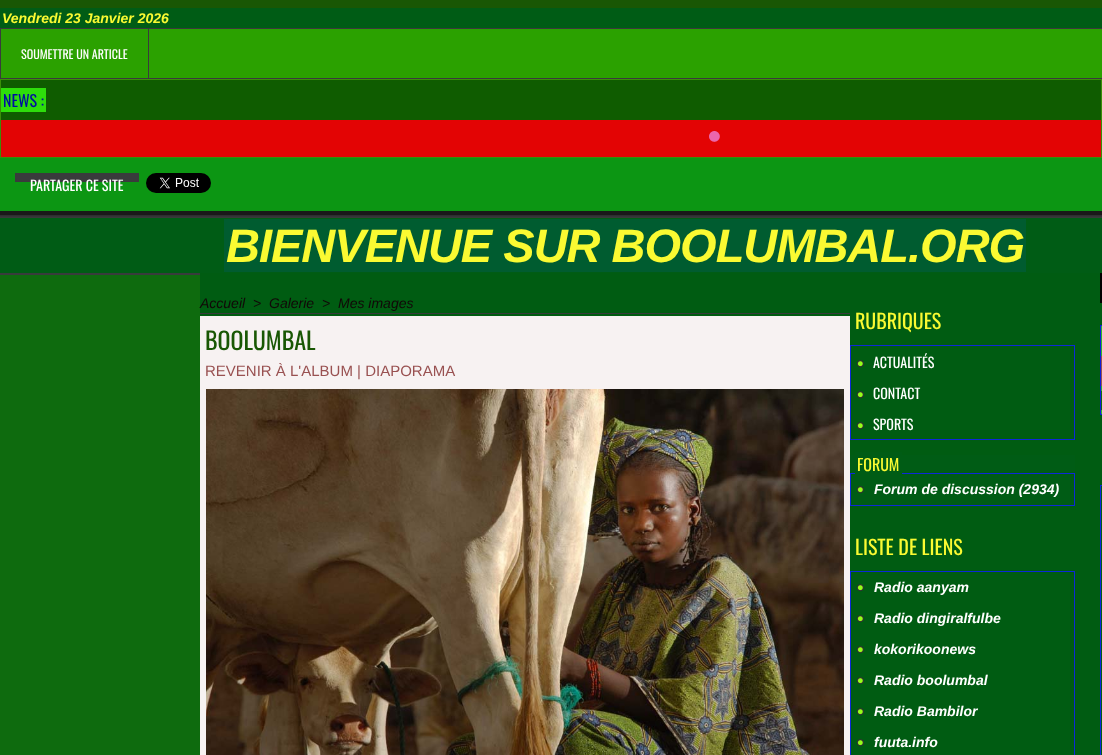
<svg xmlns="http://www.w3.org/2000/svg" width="1102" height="755">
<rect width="100%" height="100%" fill="#0e6b0e"/>
<rect width="1102" height="8" fill="#195704"/>
<rect y="8" width="1102" height="20" fill="#005c15"/>
<text x="2" y="23" style="font-family:Liberation Sans;font-size:14px;font-weight:bold;font-style:italic;fill:#fafa32">Vendredi 23 Janvier 2026</text>
<rect x="0.5" y="28.5" width="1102" height="50" fill="none" stroke="#393b3c"/>
<rect x="1" y="29" width="1101" height="49" fill="#2ba100"/>
<text x="21" y="59" style="font-family:Oswald;font-size:12px;fill:#fff">SOUMETTRE UN ARTICLE</text>
<rect x="148" y="29" width="1" height="49" fill="#393b3c"/>
<rect x="1" y="120" width="1100" height="37" fill="#e30404"/>
<rect x="0.5" y="79.5" width="1101" height="78" fill="none" stroke="#398f08"/>
<rect x="1" y="80" width="1100" height="40" fill="#0f5c00"/>
<rect x="1" y="88" width="45" height="24" fill="#2ede0b"/>
<text x="3" y="107" style="font-family:Oswald;font-size:16px;fill:#000da1">NEWS :</text>
<image x="709" y="131" width="11" height="11" href="media/1.png"/>
<rect y="158" width="1102" height="53" fill="#0c9613"/>
<rect x="15" y="173" width="124" height="9" fill="#393b3c"/>
<text x="30" y="191" style="font-family:Oswald;font-size:14px;fill:#fff">PARTAGER CE SITE</text>
<image x="146" y="173" width="65" height="20" href="media/2.png"/>
<image x="0" y="211" width="1102" height="7" href="media/3.png"/>
<rect y="218" width="1102" height="55" fill="#005c15"/>
<rect x="224" y="219" width="802" height="53" fill="#005c30"/>
<text x="226" y="262" style="font-family:Liberation Sans;font-size:47px;font-weight:bold;font-style:italic;letter-spacing:-1px;fill:#fafa32">BIENVENUE SUR BOOLUMBAL.ORG</text>
<rect y="273" width="200" height="2" fill="#393b3c"/>
<rect x="200" y="273" width="650" height="43" fill="#005c12"/>
<text x="200" y="308" style="font-family:Liberation Sans;font-size:14px;font-style:italic;fill:#110808">Accueil</text>
<text x="253" y="308" style="font-family:Liberation Sans;font-size:14px;font-style:italic;fill:#110808">&gt;</text>
<text x="269" y="308" style="font-family:Liberation Sans;font-size:14px;font-style:italic;fill:#110808">Galerie</text>
<text x="322" y="308" style="font-family:Liberation Sans;font-size:14px;font-style:italic;fill:#110808">&gt;</text>
<text x="338" y="308" style="font-family:Liberation Sans;font-size:14px;font-style:italic;fill:#110808">Mes images</text>
<rect x="200" y="313" width="650" height="1" fill="#393b3c"/>
<rect x="200" y="316" width="650" height="439" fill="#f7f2f2"/>
<text x="205" y="350" style="font-family:Oswald;font-size:24px;fill:#195704">BOOLUMBAL</text>
<text x="205" y="376" style="font-family:Liberation Sans;font-size:15px;fill:#995151">REVENIR À L'ALBUM | DIAPORAMA</text>
<image x="206" y="389" width="638" height="366" href="media/4.png"/>
<rect x="850" y="273" width="250" height="482" fill="#005c12"/>
<rect x="850" y="439" width="225" height="1" fill="#0d28d9"/>
<rect x="850" y="345" width="225" height="1" fill="#0d28d9"/>
<text x="855" y="329" style="font-family:Oswald;font-size:20px;fill:#fafa32">RUBRIQUES</text>
<rect x="1074" y="346" width="1" height="93" fill="#0d28d9"/>
<rect x="850" y="346" width="1" height="93" fill="#0d28d9"/>
<image x="856" y="360" width="8" height="8" href="media/5.png"/>
<text x="873" y="368" style="font-family:Oswald;font-size:14px;fill:#fff">ACTUALITÉS</text>
<image x="856" y="391" width="8" height="8" href="media/5.png"/>
<text x="873" y="399" style="font-family:Oswald;font-size:14px;fill:#fff">CONTACT</text>
<image x="856" y="422" width="8" height="8" href="media/5.png"/>
<text x="873" y="430" style="font-family:Oswald;font-size:14px;fill:#fff">SPORTS</text>
<rect x="850" y="505" width="225" height="1" fill="#0d28d9"/>
<rect x="850" y="455" width="225" height="18" fill="#005c15"/>
<rect x="850" y="473" width="225" height="1" fill="#0d28d9"/>
<rect x="855" y="452" width="47" height="22" fill="#005c15"/>
<text x="857" y="471" style="font-family:Oswald;font-size:16px;fill:#fafa32">FORUM</text>
<rect x="851" y="474" width="223" height="31" fill="#005c15"/>
<rect x="1074" y="474" width="1" height="31" fill="#0d28d9"/>
<rect x="850" y="474" width="1" height="31" fill="#0d28d9"/>
<image x="856" y="486" width="8" height="8" href="media/6.png"/>
<text x="874" y="494" style="font-family:Liberation Sans;font-size:14px;font-weight:bold;font-style:italic;fill:#fff">Forum de discussion (2934)</text>
<rect x="850" y="571" width="225" height="1" fill="#0d28d9"/>
<text x="855" y="555" style="font-family:Oswald;font-size:20px;fill:#fafa32">LISTE DE LIENS</text>
<rect x="1074" y="572" width="1" height="183" fill="#0d28d9"/>
<rect x="850" y="572" width="1" height="183" fill="#0d28d9"/>
<image x="856" y="584" width="8" height="8" href="media/5.png"/>
<text x="874" y="592" style="font-family:Liberation Sans;font-size:14px;font-weight:bold;font-style:italic;fill:#fff">Radio aanyam</text>
<image x="856" y="615" width="8" height="8" href="media/5.png"/>
<text x="874" y="623" style="font-family:Liberation Sans;font-size:14px;font-weight:bold;font-style:italic;fill:#fff">Radio dingiralfulbe</text>
<image x="856" y="646" width="8" height="8" href="media/5.png"/>
<text x="874" y="654" style="font-family:Liberation Sans;font-size:14px;font-weight:bold;font-style:italic;fill:#fff">kokorikoonews</text>
<image x="856" y="677" width="8" height="8" href="media/5.png"/>
<text x="874" y="685" style="font-family:Liberation Sans;font-size:14px;font-weight:bold;font-style:italic;fill:#fff">Radio boolumbal</text>
<image x="856" y="708" width="8" height="8" href="media/5.png"/>
<text x="874" y="716" style="font-family:Liberation Sans;font-size:14px;font-weight:bold;font-style:italic;fill:#fff">Radio Bambilor</text>
<image x="856" y="739" width="8" height="8" href="media/5.png"/>
<text x="874" y="747" style="font-family:Liberation Sans;font-size:14px;font-weight:bold;font-style:italic;fill:#fff">fuuta.info</text>
<rect x="1100" y="303" width="2" height="452" fill="#005c12"/>
<rect x="1100" y="273" width="2" height="30" fill="#000"/>
<rect x="1100.5" y="325.5" width="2" height="89" fill="none" stroke="#111bd9"/>
<rect x="1101" y="326" width="1" height="88" fill="#2cb82c"/>
<rect x="1101" y="356" width="1" height="30" fill="#995151"/>
<rect x="1101" y="391" width="1" height="19" fill="#0e6b0e"/>
<rect x="1100" y="485" width="2" height="1" fill="#0d28d9"/>
<rect x="1100" y="486" width="1" height="269" fill="#0d28d9"/>
</svg>
